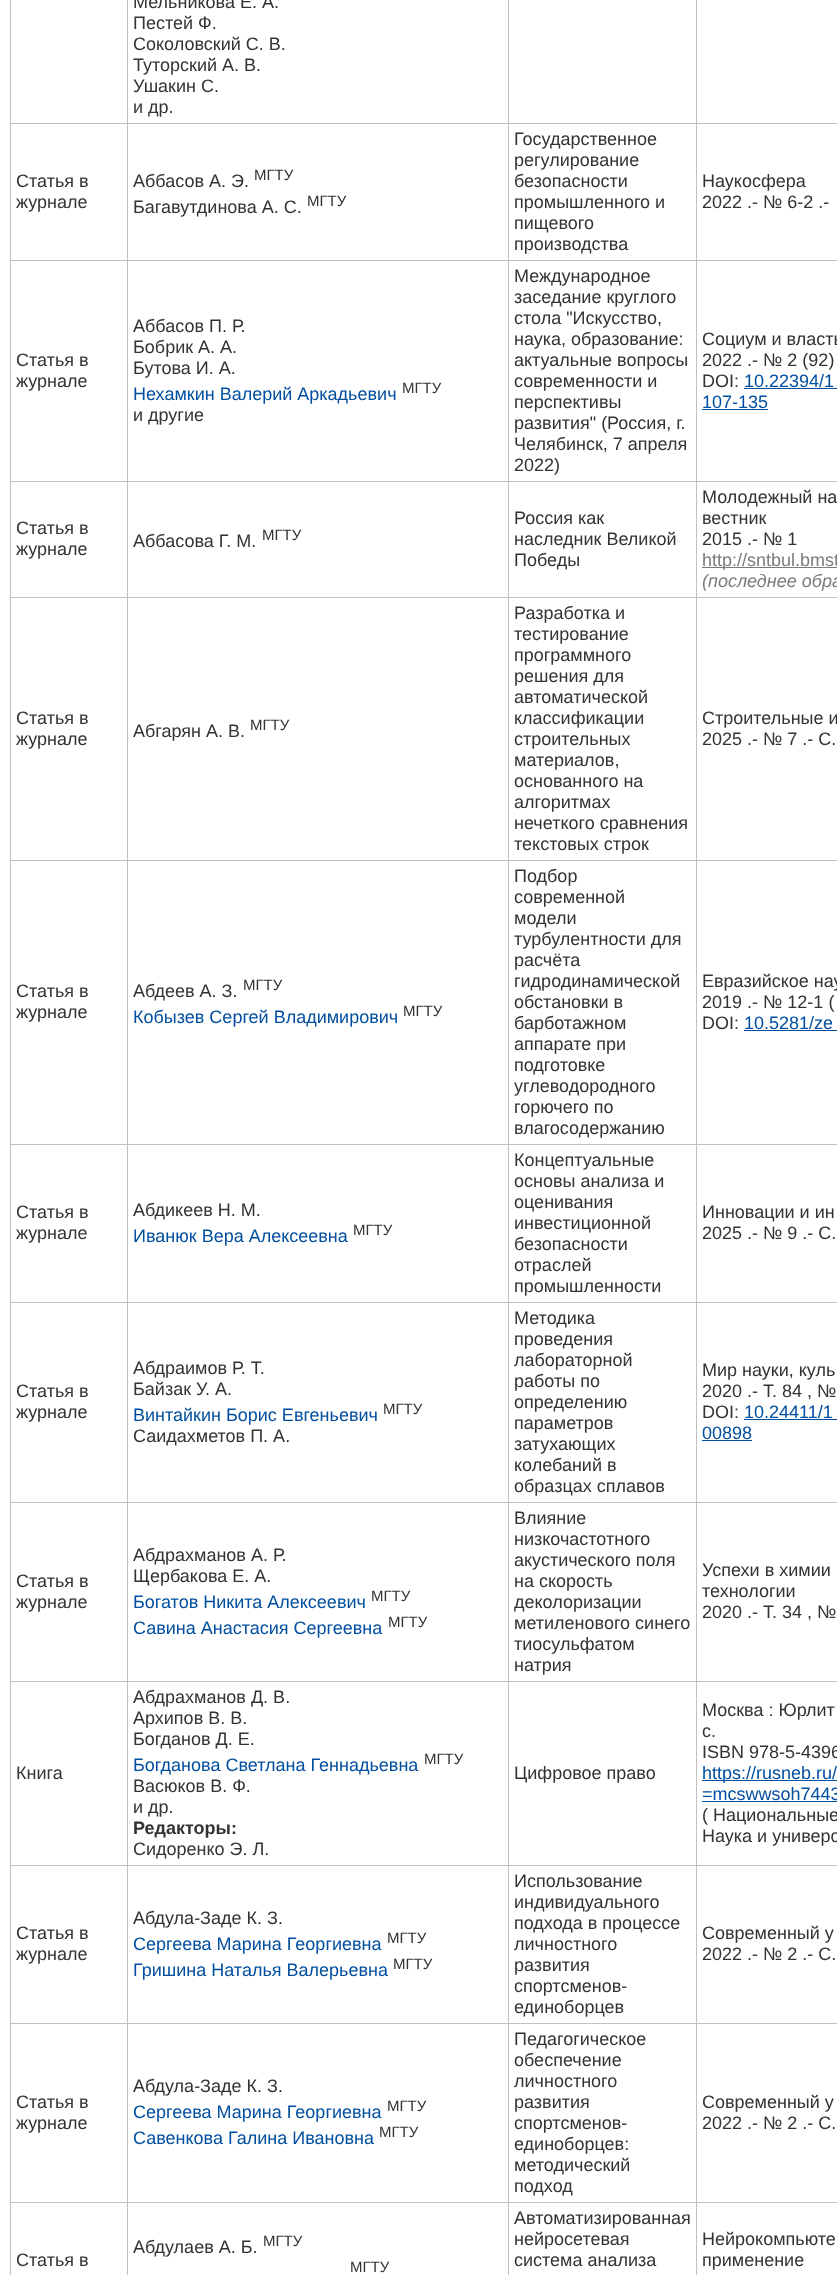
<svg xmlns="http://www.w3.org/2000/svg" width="837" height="2275">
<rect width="100%" height="100%" fill="#fff"/>
<rect x="696" y="123" width="141" height="1" fill="#c1c1c1"/>
<rect x="696" y="260" width="141" height="1" fill="#c1c1c1"/>
<rect x="696" y="481" width="141" height="1" fill="#c1c1c1"/>
<rect x="696" y="597" width="141" height="1" fill="#c1c1c1"/>
<rect x="696" y="860" width="141" height="1" fill="#c1c1c1"/>
<rect x="696" y="1144" width="141" height="1" fill="#c1c1c1"/>
<rect x="696" y="1302" width="141" height="1" fill="#c1c1c1"/>
<rect x="696" y="1502" width="141" height="1" fill="#c1c1c1"/>
<rect x="696" y="1681" width="141" height="1" fill="#c1c1c1"/>
<rect x="696" y="1865" width="141" height="1" fill="#c1c1c1"/>
<rect x="696" y="2023" width="141" height="1" fill="#c1c1c1"/>
<rect x="696" y="2202" width="141" height="1" fill="#c1c1c1"/>
<rect x="696" y="2202" width="1" height="73" fill="#c1c1c1"/>
<rect x="508" y="2202" width="189" height="1" fill="#c1c1c1"/>
<rect x="696" y="2023" width="1" height="180" fill="#c1c1c1"/>
<rect x="508" y="2023" width="189" height="1" fill="#c1c1c1"/>
<rect x="696" y="1865" width="1" height="159" fill="#c1c1c1"/>
<rect x="508" y="1865" width="189" height="1" fill="#c1c1c1"/>
<rect x="696" y="1681" width="1" height="185" fill="#c1c1c1"/>
<rect x="508" y="1681" width="189" height="1" fill="#c1c1c1"/>
<rect x="696" y="1502" width="1" height="180" fill="#c1c1c1"/>
<rect x="508" y="1502" width="189" height="1" fill="#c1c1c1"/>
<rect x="696" y="1302" width="1" height="201" fill="#c1c1c1"/>
<rect x="508" y="1302" width="189" height="1" fill="#c1c1c1"/>
<rect x="696" y="1144" width="1" height="159" fill="#c1c1c1"/>
<rect x="508" y="1144" width="189" height="1" fill="#c1c1c1"/>
<rect x="696" y="860" width="1" height="285" fill="#c1c1c1"/>
<rect x="508" y="860" width="189" height="1" fill="#c1c1c1"/>
<rect x="696" y="597" width="1" height="264" fill="#c1c1c1"/>
<rect x="508" y="597" width="189" height="1" fill="#c1c1c1"/>
<rect x="696" y="481" width="1" height="117" fill="#c1c1c1"/>
<rect x="508" y="481" width="189" height="1" fill="#c1c1c1"/>
<rect x="696" y="260" width="1" height="222" fill="#c1c1c1"/>
<rect x="508" y="260" width="189" height="1" fill="#c1c1c1"/>
<rect x="696" y="123" width="1" height="138" fill="#c1c1c1"/>
<rect x="508" y="123" width="189" height="1" fill="#c1c1c1"/>
<rect x="508" y="2202" width="1" height="73" fill="#c1c1c1"/>
<rect x="127" y="2202" width="382" height="1" fill="#c1c1c1"/>
<rect x="508" y="2023" width="1" height="180" fill="#c1c1c1"/>
<rect x="127" y="2023" width="382" height="1" fill="#c1c1c1"/>
<rect x="508" y="1865" width="1" height="159" fill="#c1c1c1"/>
<rect x="127" y="1865" width="382" height="1" fill="#c1c1c1"/>
<rect x="508" y="1681" width="1" height="185" fill="#c1c1c1"/>
<rect x="127" y="1681" width="382" height="1" fill="#c1c1c1"/>
<rect x="508" y="1502" width="1" height="180" fill="#c1c1c1"/>
<rect x="127" y="1502" width="382" height="1" fill="#c1c1c1"/>
<rect x="508" y="1302" width="1" height="201" fill="#c1c1c1"/>
<rect x="127" y="1302" width="382" height="1" fill="#c1c1c1"/>
<rect x="508" y="1144" width="1" height="159" fill="#c1c1c1"/>
<rect x="127" y="1144" width="382" height="1" fill="#c1c1c1"/>
<rect x="508" y="860" width="1" height="285" fill="#c1c1c1"/>
<rect x="127" y="860" width="382" height="1" fill="#c1c1c1"/>
<rect x="508" y="597" width="1" height="264" fill="#c1c1c1"/>
<rect x="127" y="597" width="382" height="1" fill="#c1c1c1"/>
<rect x="508" y="481" width="1" height="117" fill="#c1c1c1"/>
<rect x="127" y="481" width="382" height="1" fill="#c1c1c1"/>
<rect x="508" y="260" width="1" height="222" fill="#c1c1c1"/>
<rect x="127" y="260" width="382" height="1" fill="#c1c1c1"/>
<rect x="508" y="123" width="1" height="138" fill="#c1c1c1"/>
<rect x="127" y="123" width="382" height="1" fill="#c1c1c1"/>
<rect x="127" y="2202" width="1" height="73" fill="#c1c1c1"/>
<rect x="10" y="2202" width="118" height="1" fill="#c1c1c1"/>
<rect x="127" y="2023" width="1" height="180" fill="#c1c1c1"/>
<rect x="10" y="2023" width="118" height="1" fill="#c1c1c1"/>
<rect x="127" y="1865" width="1" height="159" fill="#c1c1c1"/>
<rect x="10" y="1865" width="118" height="1" fill="#c1c1c1"/>
<rect x="127" y="1681" width="1" height="185" fill="#c1c1c1"/>
<rect x="10" y="1681" width="118" height="1" fill="#c1c1c1"/>
<rect x="127" y="1502" width="1" height="180" fill="#c1c1c1"/>
<rect x="10" y="1502" width="118" height="1" fill="#c1c1c1"/>
<rect x="127" y="1302" width="1" height="201" fill="#c1c1c1"/>
<rect x="10" y="1302" width="118" height="1" fill="#c1c1c1"/>
<rect x="127" y="1144" width="1" height="159" fill="#c1c1c1"/>
<rect x="10" y="1144" width="118" height="1" fill="#c1c1c1"/>
<rect x="127" y="860" width="1" height="285" fill="#c1c1c1"/>
<rect x="10" y="860" width="118" height="1" fill="#c1c1c1"/>
<rect x="127" y="597" width="1" height="264" fill="#c1c1c1"/>
<rect x="10" y="597" width="118" height="1" fill="#c1c1c1"/>
<rect x="127" y="481" width="1" height="117" fill="#c1c1c1"/>
<rect x="10" y="481" width="118" height="1" fill="#c1c1c1"/>
<rect x="127" y="260" width="1" height="222" fill="#c1c1c1"/>
<rect x="10" y="260" width="118" height="1" fill="#c1c1c1"/>
<rect x="127" y="123" width="1" height="138" fill="#c1c1c1"/>
<rect x="10" y="123" width="118" height="1" fill="#c1c1c1"/>
<rect x="127" width="1" height="124" fill="#c1c1c1"/>
<text x="133" y="8" style="font-family:Liberation Sans;font-size:18px;fill:#333">Мельникова Е. А.</text>
<text x="133" y="29" style="font-family:Liberation Sans;font-size:18px;fill:#333">Пестей Ф.</text>
<text x="133" y="50" style="font-family:Liberation Sans;font-size:18px;fill:#333">Соколовский С. В.</text>
<text x="133" y="71" style="font-family:Liberation Sans;font-size:18px;fill:#333">Туторский А. В.</text>
<text x="133" y="92" style="font-family:Liberation Sans;font-size:18px;fill:#333">Ушакин С.</text>
<text x="133" y="113" style="font-family:Liberation Sans;font-size:18px;fill:#333">и др.</text>
<rect x="508" width="1" height="124" fill="#c1c1c1"/>
<rect x="696" width="1" height="124" fill="#c1c1c1"/>
<rect x="10" y="2202" width="1" height="73" fill="#c1c1c1"/>
<rect x="10" y="2023" width="1" height="180" fill="#c1c1c1"/>
<rect x="10" y="1865" width="1" height="159" fill="#c1c1c1"/>
<rect x="10" y="1681" width="1" height="185" fill="#c1c1c1"/>
<rect x="10" y="1502" width="1" height="180" fill="#c1c1c1"/>
<rect x="10" y="1302" width="1" height="201" fill="#c1c1c1"/>
<rect x="10" y="1144" width="1" height="159" fill="#c1c1c1"/>
<rect x="10" y="860" width="1" height="285" fill="#c1c1c1"/>
<rect x="10" y="597" width="1" height="264" fill="#c1c1c1"/>
<rect x="10" y="481" width="1" height="117" fill="#c1c1c1"/>
<rect x="10" y="260" width="1" height="222" fill="#c1c1c1"/>
<rect x="10" width="1" height="261" fill="#c1c1c1"/>
<text x="16" y="187" style="font-family:Liberation Sans;font-size:18px;fill:#333">Статья в</text>
<text x="16" y="208" style="font-family:Liberation Sans;font-size:18px;fill:#333">журнале</text>
<text x="133" y="187" style="font-family:Liberation Sans;font-size:18px;fill:#333">Аббасов А. Э.</text>
<text x="254" y="180" style="font-family:Liberation Sans;font-size:15px;fill:#333">МГТУ</text>
<text x="133" y="213" style="font-family:Liberation Sans;font-size:18px;fill:#333">Багавутдинова А. С.</text>
<text x="307" y="206" style="font-family:Liberation Sans;font-size:15px;fill:#333">МГТУ</text>
<text x="514" y="145" style="font-family:Liberation Sans;font-size:18px;fill:#333">Государственное</text>
<text x="514" y="166" style="font-family:Liberation Sans;font-size:18px;fill:#333">регулирование</text>
<text x="514" y="187" style="font-family:Liberation Sans;font-size:18px;fill:#333">безопасности</text>
<text x="514" y="208" style="font-family:Liberation Sans;font-size:18px;fill:#333">промышленного и</text>
<text x="514" y="229" style="font-family:Liberation Sans;font-size:18px;fill:#333">пищевого</text>
<text x="514" y="250" style="font-family:Liberation Sans;font-size:18px;fill:#333">производства</text>
<text x="702" y="187" style="font-family:Liberation Sans;font-size:18px;fill:#333">Наукосфера</text>
<text x="702" y="208" style="font-family:Liberation Sans;font-size:18px;fill:#333">2022 .- № 6-2 .-</text>
<text x="16" y="366" style="font-family:Liberation Sans;font-size:18px;fill:#333">Статья в</text>
<text x="16" y="387" style="font-family:Liberation Sans;font-size:18px;fill:#333">журнале</text>
<text x="133" y="332" style="font-family:Liberation Sans;font-size:18px;fill:#333">Аббасов П. Р.</text>
<text x="133" y="353" style="font-family:Liberation Sans;font-size:18px;fill:#333">Бобрик А. А.</text>
<text x="133" y="374" style="font-family:Liberation Sans;font-size:18px;fill:#333">Бутова И. А.</text>
<text x="133" y="400" style="font-family:Liberation Sans;font-size:18px;fill:#004e9f">Нехамкин Валерий Аркадьевич</text>
<text x="402" y="393" style="font-family:Liberation Sans;font-size:15px;fill:#333">МГТУ</text>
<text x="133" y="421" style="font-family:Liberation Sans;font-size:18px;fill:#333">и другие</text>
<text x="514" y="282" style="font-family:Liberation Sans;font-size:18px;fill:#333">Международное</text>
<text x="514" y="303" style="font-family:Liberation Sans;font-size:18px;fill:#333">заседание круглого</text>
<text x="514" y="324" style="font-family:Liberation Sans;font-size:18px;fill:#333">стола "Искусство,</text>
<text x="514" y="345" style="font-family:Liberation Sans;font-size:18px;fill:#333">наука, образование:</text>
<text x="514" y="366" style="font-family:Liberation Sans;font-size:18px;fill:#333">актуальные вопросы</text>
<text x="514" y="387" style="font-family:Liberation Sans;font-size:18px;fill:#333">современности и</text>
<text x="514" y="408" style="font-family:Liberation Sans;font-size:18px;fill:#333">перспективы</text>
<text x="514" y="429" style="font-family:Liberation Sans;font-size:18px;fill:#333">развития" (Россия, г.</text>
<text x="514" y="450" style="font-family:Liberation Sans;font-size:18px;fill:#333">Челябинск, 7 апреля</text>
<text x="514" y="471" style="font-family:Liberation Sans;font-size:18px;fill:#333">2022)</text>
<text x="702" y="345" style="font-family:Liberation Sans;font-size:18px;fill:#333">Социум и власть</text>
<text x="702" y="366" style="font-family:Liberation Sans;font-size:18px;fill:#333">2022 .- № 2 (92)</text>
<text x="702" y="387" style="font-family:Liberation Sans;font-size:18px;fill:#333">DOI:</text>
<text x="744" y="387" style="font-family:Liberation Sans;font-size:18px;fill:#004e9f">10.22394/1</text>
<rect x="744" y="388" width="93" height="1" fill="#004e9f"/>
<text x="702" y="408" style="font-family:Liberation Sans;font-size:18px;fill:#004e9f">107-135</text>
<rect x="702" y="409" width="66" height="1" fill="#004e9f"/>
<text x="16" y="534" style="font-family:Liberation Sans;font-size:18px;fill:#333">Статья в</text>
<text x="16" y="555" style="font-family:Liberation Sans;font-size:18px;fill:#333">журнале</text>
<text x="133" y="547" style="font-family:Liberation Sans;font-size:18px;fill:#333">Аббасова Г. М.</text>
<text x="262" y="540" style="font-family:Liberation Sans;font-size:15px;fill:#333">МГТУ</text>
<text x="514" y="524" style="font-family:Liberation Sans;font-size:18px;fill:#333">Россия как</text>
<text x="514" y="545" style="font-family:Liberation Sans;font-size:18px;fill:#333">наследник Великой</text>
<text x="514" y="566" style="font-family:Liberation Sans;font-size:18px;fill:#333">Победы</text>
<text x="702" y="503" style="font-family:Liberation Sans;font-size:18px;fill:#333">Молодежный на</text>
<text x="702" y="524" style="font-family:Liberation Sans;font-size:18px;fill:#333">вестник</text>
<text x="702" y="545" style="font-family:Liberation Sans;font-size:18px;fill:#333">2015 .- № 1</text>
<rect x="702" y="567" width="135" height="1" fill="#7b7b7b"/>
<text x="702" y="566" style="font-family:Liberation Sans;font-size:18px;fill:#7b7b7b">http://sntbul.bmst</text>
<text x="702" y="587" style="font-family:Liberation Sans;font-size:18px;font-style:italic;fill:#7b7b7b">(последнее обра</text>
<text x="16" y="724" style="font-family:Liberation Sans;font-size:18px;fill:#333">Статья в</text>
<text x="16" y="745" style="font-family:Liberation Sans;font-size:18px;fill:#333">журнале</text>
<text x="133" y="737" style="font-family:Liberation Sans;font-size:18px;fill:#333">Абгарян А. В.</text>
<text x="250" y="730" style="font-family:Liberation Sans;font-size:15px;fill:#333">МГТУ</text>
<text x="514" y="619" style="font-family:Liberation Sans;font-size:18px;fill:#333">Разработка и</text>
<text x="514" y="640" style="font-family:Liberation Sans;font-size:18px;fill:#333">тестирование</text>
<text x="514" y="661" style="font-family:Liberation Sans;font-size:18px;fill:#333">программного</text>
<text x="514" y="682" style="font-family:Liberation Sans;font-size:18px;fill:#333">решения для</text>
<text x="514" y="703" style="font-family:Liberation Sans;font-size:18px;fill:#333">автоматической</text>
<text x="514" y="724" style="font-family:Liberation Sans;font-size:18px;fill:#333">классификации</text>
<text x="514" y="745" style="font-family:Liberation Sans;font-size:18px;fill:#333">строительных</text>
<text x="514" y="766" style="font-family:Liberation Sans;font-size:18px;fill:#333">материалов,</text>
<text x="514" y="787" style="font-family:Liberation Sans;font-size:18px;fill:#333">основанного на</text>
<text x="514" y="808" style="font-family:Liberation Sans;font-size:18px;fill:#333">алгоритмах</text>
<text x="514" y="829" style="font-family:Liberation Sans;font-size:18px;fill:#333">нечеткого сравнения</text>
<text x="514" y="850" style="font-family:Liberation Sans;font-size:18px;fill:#333">текстовых строк</text>
<text x="702" y="724" style="font-family:Liberation Sans;font-size:18px;fill:#333">Строительные и</text>
<text x="702" y="745" style="font-family:Liberation Sans;font-size:18px;fill:#333">2025 .- № 7 .- С.</text>
<text x="16" y="997" style="font-family:Liberation Sans;font-size:18px;fill:#333">Статья в</text>
<text x="16" y="1018" style="font-family:Liberation Sans;font-size:18px;fill:#333">журнале</text>
<text x="133" y="997" style="font-family:Liberation Sans;font-size:18px;fill:#333">Абдеев А. З.</text>
<text x="243" y="990" style="font-family:Liberation Sans;font-size:15px;fill:#333">МГТУ</text>
<text x="133" y="1023" style="font-family:Liberation Sans;font-size:18px;fill:#004e9f">Кобызев Сергей Владимирович</text>
<text x="403" y="1016" style="font-family:Liberation Sans;font-size:15px;fill:#333">МГТУ</text>
<text x="514" y="882" style="font-family:Liberation Sans;font-size:18px;fill:#333">Подбор</text>
<text x="514" y="903" style="font-family:Liberation Sans;font-size:18px;fill:#333">современной</text>
<text x="514" y="924" style="font-family:Liberation Sans;font-size:18px;fill:#333">модели</text>
<text x="514" y="945" style="font-family:Liberation Sans;font-size:18px;fill:#333">турбулентности для</text>
<text x="514" y="966" style="font-family:Liberation Sans;font-size:18px;fill:#333">расчёта</text>
<text x="514" y="987" style="font-family:Liberation Sans;font-size:18px;fill:#333">гидродинамической</text>
<text x="514" y="1008" style="font-family:Liberation Sans;font-size:18px;fill:#333">обстановки в</text>
<text x="514" y="1029" style="font-family:Liberation Sans;font-size:18px;fill:#333">барботажном</text>
<text x="514" y="1050" style="font-family:Liberation Sans;font-size:18px;fill:#333">аппарате при</text>
<text x="514" y="1071" style="font-family:Liberation Sans;font-size:18px;fill:#333">подготовке</text>
<text x="514" y="1092" style="font-family:Liberation Sans;font-size:18px;fill:#333">углеводородного</text>
<text x="514" y="1113" style="font-family:Liberation Sans;font-size:18px;fill:#333">горючего по</text>
<text x="514" y="1134" style="font-family:Liberation Sans;font-size:18px;fill:#333">влагосодержанию</text>
<text x="702" y="987" style="font-family:Liberation Sans;font-size:18px;fill:#333">Евразийское нау</text>
<text x="702" y="1008" style="font-family:Liberation Sans;font-size:18px;fill:#333">2019 .- № 12-1 (</text>
<text x="702" y="1029" style="font-family:Liberation Sans;font-size:18px;fill:#333">DOI:</text>
<text x="744" y="1029" style="font-family:Liberation Sans;font-size:18px;fill:#004e9f">10.5281/ze</text>
<rect x="744" y="1030" width="93" height="1" fill="#004e9f"/>
<text x="16" y="1218" style="font-family:Liberation Sans;font-size:18px;fill:#333">Статья в</text>
<text x="16" y="1239" style="font-family:Liberation Sans;font-size:18px;fill:#333">журнале</text>
<text x="133" y="1216" style="font-family:Liberation Sans;font-size:18px;fill:#333">Абдикеев Н. М.</text>
<text x="133" y="1242" style="font-family:Liberation Sans;font-size:18px;fill:#004e9f">Иванюк Вера Алексеевна</text>
<text x="353" y="1235" style="font-family:Liberation Sans;font-size:15px;fill:#333">МГТУ</text>
<text x="514" y="1166" style="font-family:Liberation Sans;font-size:18px;fill:#333">Концептуальные</text>
<text x="514" y="1187" style="font-family:Liberation Sans;font-size:18px;fill:#333">основы анализа и</text>
<text x="514" y="1208" style="font-family:Liberation Sans;font-size:18px;fill:#333">оценивания</text>
<text x="514" y="1229" style="font-family:Liberation Sans;font-size:18px;fill:#333">инвестиционной</text>
<text x="514" y="1250" style="font-family:Liberation Sans;font-size:18px;fill:#333">безопасности</text>
<text x="514" y="1271" style="font-family:Liberation Sans;font-size:18px;fill:#333">отраслей</text>
<text x="514" y="1292" style="font-family:Liberation Sans;font-size:18px;fill:#333">промышленности</text>
<text x="702" y="1218" style="font-family:Liberation Sans;font-size:18px;fill:#333">Инновации и ин</text>
<text x="702" y="1239" style="font-family:Liberation Sans;font-size:18px;fill:#333">2025 .- № 9 .- С.</text>
<text x="16" y="1397" style="font-family:Liberation Sans;font-size:18px;fill:#333">Статья в</text>
<text x="16" y="1418" style="font-family:Liberation Sans;font-size:18px;fill:#333">журнале</text>
<text x="133" y="1374" style="font-family:Liberation Sans;font-size:18px;fill:#333">Абдраимов Р. Т.</text>
<text x="133" y="1395" style="font-family:Liberation Sans;font-size:18px;fill:#333">Байзак У. А.</text>
<text x="133" y="1421" style="font-family:Liberation Sans;font-size:18px;fill:#004e9f">Винтайкин Борис Евгеньевич</text>
<text x="383" y="1414" style="font-family:Liberation Sans;font-size:15px;fill:#333">МГТУ</text>
<text x="133" y="1442" style="font-family:Liberation Sans;font-size:18px;fill:#333">Саидахметов П. А.</text>
<text x="514" y="1324" style="font-family:Liberation Sans;font-size:18px;fill:#333">Методика</text>
<text x="514" y="1345" style="font-family:Liberation Sans;font-size:18px;fill:#333">проведения</text>
<text x="514" y="1366" style="font-family:Liberation Sans;font-size:18px;fill:#333">лабораторной</text>
<text x="514" y="1387" style="font-family:Liberation Sans;font-size:18px;fill:#333">работы по</text>
<text x="514" y="1408" style="font-family:Liberation Sans;font-size:18px;fill:#333">определению</text>
<text x="514" y="1429" style="font-family:Liberation Sans;font-size:18px;fill:#333">параметров</text>
<text x="514" y="1450" style="font-family:Liberation Sans;font-size:18px;fill:#333">затухающих</text>
<text x="514" y="1471" style="font-family:Liberation Sans;font-size:18px;fill:#333">колебаний в</text>
<text x="514" y="1492" style="font-family:Liberation Sans;font-size:18px;fill:#333">образцах сплавов</text>
<text x="702" y="1376" style="font-family:Liberation Sans;font-size:18px;fill:#333">Мир науки, куль</text>
<text x="702" y="1397" style="font-family:Liberation Sans;font-size:18px;fill:#333">2020 .- Т. 84 , №</text>
<text x="702" y="1418" style="font-family:Liberation Sans;font-size:18px;fill:#333">DOI:</text>
<text x="744" y="1418" style="font-family:Liberation Sans;font-size:18px;fill:#004e9f">10.24411/1</text>
<rect x="744" y="1419" width="93" height="1" fill="#004e9f"/>
<text x="702" y="1439" style="font-family:Liberation Sans;font-size:18px;fill:#004e9f">00898</text>
<rect x="702" y="1440" width="50" height="1" fill="#004e9f"/>
<text x="16" y="1587" style="font-family:Liberation Sans;font-size:18px;fill:#333">Статья в</text>
<text x="16" y="1608" style="font-family:Liberation Sans;font-size:18px;fill:#333">журнале</text>
<text x="133" y="1561" style="font-family:Liberation Sans;font-size:18px;fill:#333">Абдрахманов А. Р.</text>
<text x="133" y="1582" style="font-family:Liberation Sans;font-size:18px;fill:#333">Щербакова Е. А.</text>
<text x="133" y="1608" style="font-family:Liberation Sans;font-size:18px;fill:#004e9f">Богатов Никита Алексеевич</text>
<text x="371" y="1601" style="font-family:Liberation Sans;font-size:15px;fill:#333">МГТУ</text>
<text x="133" y="1634" style="font-family:Liberation Sans;font-size:18px;fill:#004e9f">Савина Анастасия Сергеевна</text>
<text x="388" y="1627" style="font-family:Liberation Sans;font-size:15px;fill:#333">МГТУ</text>
<text x="514" y="1524" style="font-family:Liberation Sans;font-size:18px;fill:#333">Влияние</text>
<text x="514" y="1545" style="font-family:Liberation Sans;font-size:18px;fill:#333">низкочастотного</text>
<text x="514" y="1566" style="font-family:Liberation Sans;font-size:18px;fill:#333">акустического поля</text>
<text x="514" y="1587" style="font-family:Liberation Sans;font-size:18px;fill:#333">на скорость</text>
<text x="514" y="1608" style="font-family:Liberation Sans;font-size:18px;fill:#333">деколоризации</text>
<text x="514" y="1629" style="font-family:Liberation Sans;font-size:18px;fill:#333">метиленового синего</text>
<text x="514" y="1650" style="font-family:Liberation Sans;font-size:18px;fill:#333">тиосульфатом</text>
<text x="514" y="1671" style="font-family:Liberation Sans;font-size:18px;fill:#333">натрия</text>
<text x="702" y="1576" style="font-family:Liberation Sans;font-size:18px;fill:#333">Успехи в химии</text>
<text x="702" y="1597" style="font-family:Liberation Sans;font-size:18px;fill:#333">технологии</text>
<text x="702" y="1618" style="font-family:Liberation Sans;font-size:18px;fill:#333">2020 .- Т. 34 , №</text>
<text x="16" y="1779" style="font-family:Liberation Sans;font-size:18px;fill:#333">Книга</text>
<text x="133" y="1703" style="font-family:Liberation Sans;font-size:18px;fill:#333">Абдрахманов Д. В.</text>
<text x="133" y="1724" style="font-family:Liberation Sans;font-size:18px;fill:#333">Архипов В. В.</text>
<text x="133" y="1745" style="font-family:Liberation Sans;font-size:18px;fill:#333">Богданов Д. Е.</text>
<text x="133" y="1771" style="font-family:Liberation Sans;font-size:18px;fill:#004e9f">Богданова Светлана Геннадьевна</text>
<text x="424" y="1764" style="font-family:Liberation Sans;font-size:15px;fill:#333">МГТУ</text>
<text x="133" y="1792" style="font-family:Liberation Sans;font-size:18px;fill:#333">Васюков В. Ф.</text>
<text x="133" y="1813" style="font-family:Liberation Sans;font-size:18px;fill:#333">и др.</text>
<text x="133" y="1834" style="font-family:Liberation Sans;font-size:18px;font-weight:bold;fill:#333">Редакторы:</text>
<text x="133" y="1855" style="font-family:Liberation Sans;font-size:18px;fill:#333">Сидоренко Э. Л.</text>
<text x="514" y="1779" style="font-family:Liberation Sans;font-size:18px;fill:#333">Цифровое право</text>
<text x="702" y="1716" style="font-family:Liberation Sans;font-size:18px;fill:#333">Москва : Юрлит</text>
<text x="702" y="1737" style="font-family:Liberation Sans;font-size:18px;fill:#333">с.</text>
<text x="702" y="1758" style="font-family:Liberation Sans;font-size:18px;fill:#333">ISBN 978-5-4396</text>
<rect x="702" y="1780" width="135" height="1" fill="#004e9f"/>
<text x="702" y="1779" style="font-family:Liberation Sans;font-size:18px;fill:#004e9f">https://rusneb.ru/</text>
<text x="702" y="1800" style="font-family:Liberation Sans;font-size:18px;fill:#004e9f">=mcswwsoh7443</text>
<rect x="702" y="1801" width="135" height="1" fill="#004e9f"/>
<text x="702" y="1821" style="font-family:Liberation Sans;font-size:18px;fill:#333">( Национальные</text>
<text x="702" y="1842" style="font-family:Liberation Sans;font-size:18px;fill:#333">Наука и универс</text>
<text x="16" y="1939" style="font-family:Liberation Sans;font-size:18px;fill:#333">Статья в</text>
<text x="16" y="1960" style="font-family:Liberation Sans;font-size:18px;fill:#333">журнале</text>
<text x="133" y="1924" style="font-family:Liberation Sans;font-size:18px;fill:#333">Абдула-Заде К. З.</text>
<text x="133" y="1950" style="font-family:Liberation Sans;font-size:18px;fill:#004e9f">Сергеева Марина Георгиевна</text>
<text x="387" y="1943" style="font-family:Liberation Sans;font-size:15px;fill:#333">МГТУ</text>
<text x="133" y="1976" style="font-family:Liberation Sans;font-size:18px;fill:#004e9f">Гришина Наталья Валерьевна</text>
<text x="393" y="1969" style="font-family:Liberation Sans;font-size:15px;fill:#333">МГТУ</text>
<text x="514" y="1887" style="font-family:Liberation Sans;font-size:18px;fill:#333">Использование</text>
<text x="514" y="1908" style="font-family:Liberation Sans;font-size:18px;fill:#333">индивидуального</text>
<text x="514" y="1929" style="font-family:Liberation Sans;font-size:18px;fill:#333">подхода в процессе</text>
<text x="514" y="1950" style="font-family:Liberation Sans;font-size:18px;fill:#333">личностного</text>
<text x="514" y="1971" style="font-family:Liberation Sans;font-size:18px;fill:#333">развития</text>
<text x="514" y="1992" style="font-family:Liberation Sans;font-size:18px;fill:#333">спортсменов-</text>
<text x="514" y="2013" style="font-family:Liberation Sans;font-size:18px;fill:#333">единоборцев</text>
<text x="702" y="1939" style="font-family:Liberation Sans;font-size:18px;fill:#333">Современный у</text>
<text x="702" y="1960" style="font-family:Liberation Sans;font-size:18px;fill:#333">2022 .- № 2 .- С.</text>
<text x="16" y="2108" style="font-family:Liberation Sans;font-size:18px;fill:#333">Статья в</text>
<text x="16" y="2129" style="font-family:Liberation Sans;font-size:18px;fill:#333">журнале</text>
<text x="133" y="2092" style="font-family:Liberation Sans;font-size:18px;fill:#333">Абдула-Заде К. З.</text>
<text x="133" y="2118" style="font-family:Liberation Sans;font-size:18px;fill:#004e9f">Сергеева Марина Георгиевна</text>
<text x="387" y="2111" style="font-family:Liberation Sans;font-size:15px;fill:#333">МГТУ</text>
<text x="133" y="2144" style="font-family:Liberation Sans;font-size:18px;fill:#004e9f">Савенкова Галина Ивановна</text>
<text x="379" y="2137" style="font-family:Liberation Sans;font-size:15px;fill:#333">МГТУ</text>
<text x="514" y="2045" style="font-family:Liberation Sans;font-size:18px;fill:#333">Педагогическое</text>
<text x="514" y="2066" style="font-family:Liberation Sans;font-size:18px;fill:#333">обеспечение</text>
<text x="514" y="2087" style="font-family:Liberation Sans;font-size:18px;fill:#333">личностного</text>
<text x="514" y="2108" style="font-family:Liberation Sans;font-size:18px;fill:#333">развития</text>
<text x="514" y="2129" style="font-family:Liberation Sans;font-size:18px;fill:#333">спортсменов-</text>
<text x="514" y="2150" style="font-family:Liberation Sans;font-size:18px;fill:#333">единоборцев:</text>
<text x="514" y="2171" style="font-family:Liberation Sans;font-size:18px;fill:#333">методический</text>
<text x="514" y="2192" style="font-family:Liberation Sans;font-size:18px;fill:#333">подход</text>
<text x="702" y="2108" style="font-family:Liberation Sans;font-size:18px;fill:#333">Современный у</text>
<text x="702" y="2129" style="font-family:Liberation Sans;font-size:18px;fill:#333">2022 .- № 2 .- С.</text>
<text x="16" y="2266" style="font-family:Liberation Sans;font-size:18px;fill:#333">Статья в</text>
<text x="133" y="2253" style="font-family:Liberation Sans;font-size:18px;fill:#333">Абдулаев А. Б.</text>
<text x="263" y="2246" style="font-family:Liberation Sans;font-size:15px;fill:#333">МГТУ</text>
<text x="350" y="2272" style="font-family:Liberation Sans;font-size:15px;fill:#333">МГТУ</text>
<text x="514" y="2224" style="font-family:Liberation Sans;font-size:18px;fill:#333">Автоматизированная</text>
<text x="514" y="2245" style="font-family:Liberation Sans;font-size:18px;fill:#333">нейросетевая</text>
<text x="514" y="2266" style="font-family:Liberation Sans;font-size:18px;fill:#333">система анализа</text>
<text x="702" y="2245" style="font-family:Liberation Sans;font-size:18px;fill:#333">Нейрокомпьюте</text>
<text x="702" y="2266" style="font-family:Liberation Sans;font-size:18px;fill:#333">применение</text>
</svg>
